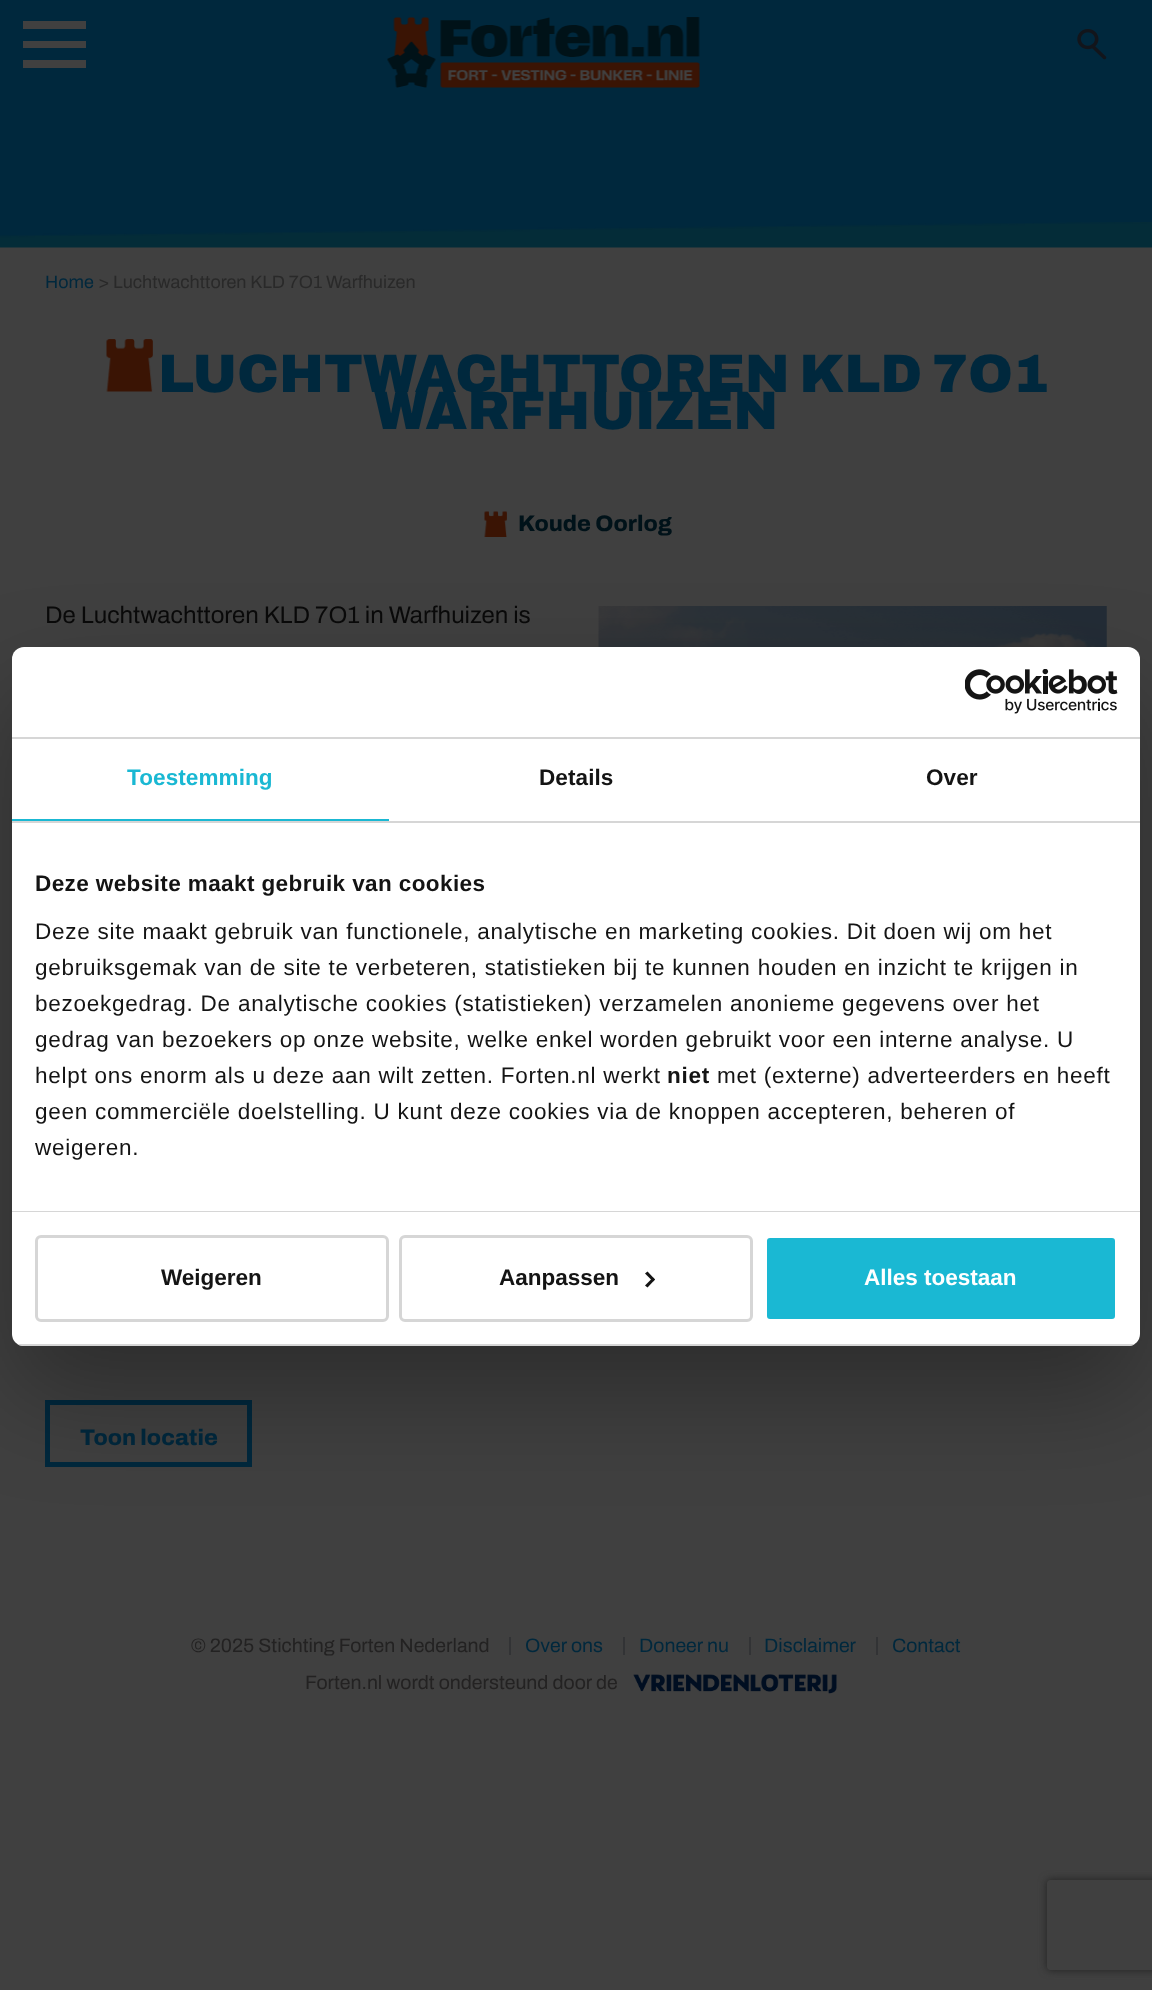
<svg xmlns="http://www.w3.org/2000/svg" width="1152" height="1990">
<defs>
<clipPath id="clip1"><rect x="12" y="647" width="1128" height="699" rx="12"/></clipPath>
<clipPath id="clip2"><path d="M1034 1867h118v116h-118zm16 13h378c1.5 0 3 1.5 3 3v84c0 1.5-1.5 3-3 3h-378c-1.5 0-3-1.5-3-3v-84c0-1.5 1.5-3 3-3z" clip-rule="evenodd"/></clipPath>
</defs>
<rect width="100%" height="100%" fill="#404040"/>
<rect width="1152" height="248" fill="#00283d"/>
<rect x="23" y="21" width="63" height="8" fill="#404040"/>
<rect x="23" y="41" width="63" height="7" fill="#404040"/>
<rect x="23" y="60" width="63" height="8" fill="#404040"/>
<image x="387" y="17" width="313" height="71" href="media/1.png"/>
<image x="1077" y="29" width="30" height="31" href="media/2.png"/>
<image x="0" y="222" width="1152" height="42" href="media/3.png"/>
<text x="45" y="288" style="font-family:Archivo;font-size:18px;fill:#00283d">Home</text>
<text x="98" y="288" style="font-family:Archivo;font-size:18px;fill:#292929">&gt; Luchtwachttoren KLD 7O1 Warfhuizen</text>
<image x="106" y="339" width="47" height="53" href="media/4.png"/>
<text x="158" y="392" style="font-family:Archivo;font-size:54px;font-weight:900;fill:#00283d">LUCHTWACHTTOREN KLD 7O1</text>
<text x="374" y="429" style="font-family:Archivo;font-size:54px;font-weight:900;fill:#00283d">WARFHUIZEN</text>
<image x="484" y="511" width="23" height="26" href="media/5.png"/>
<text x="518" y="531" style="font-family:Archivo;font-size:22.5px;font-weight:800;fill:#001219">Koude Oorlog</text>
<text x="45" y="623" style="font-family:Archivo;font-size:24px;fill:#0a0a0a">De Luchtwachttoren KLD 7O1 in Warfhuizen is</text>
<rect x="47.5" y="1402.5" width="202" height="62" fill="none" stroke="#00283d" stroke-width="5"/>
<text x="80" y="1445" style="font-family:Archivo;font-size:22.5px;font-weight:800;fill:#00283d">Toon locatie</text>
<image x="598" y="606" width="509" height="41" href="media/6.png"/>
<text x="191" y="1652" style="font-family:Archivo;font-size:19.5px;fill:#232222">© 2025 Stichting Forten Nederland</text>
<rect x="509" y="1637" width="2" height="18" fill="#323335"/>
<text x="525" y="1652" style="font-family:Archivo;font-size:19.5px;fill:#00283d">Over ons</text>
<rect x="623" y="1637" width="2" height="18" fill="#323335"/>
<text x="639" y="1652" style="font-family:Archivo;font-size:19.5px;fill:#00283d">Doneer nu</text>
<rect x="749" y="1637" width="2" height="18" fill="#323335"/>
<text x="764" y="1652" style="font-family:Archivo;font-size:19.5px;fill:#00283d">Disclaimer</text>
<rect x="876" y="1637" width="2" height="18" fill="#323335"/>
<text x="892" y="1652" style="font-family:Archivo;font-size:19.5px;fill:#00283d">Contact</text>
<text x="305" y="1689" style="font-family:Archivo;font-size:19.5px;fill:#232222">Forten.nl wordt ondersteund door de</text>
<image x="633" y="1674" width="204" height="20" href="media/7.png"/>
<rect x="12" y="695" width="1128" height="699" rx="12" fill="#0000004d" filter="blur(51px)"/>
<rect x="12" y="647" width="1128" height="699" rx="12" fill="#fff"/>
<rect x="12" y="737" width="1128" height="2" fill="#d6d6d6"/>
<image x="965" y="669" width="153" height="45" href="media/8.png"/>
<rect x="12" y="821" width="1128" height="2" fill="#d6d6d6"/>
<rect x="12" y="819" width="377" height="2" fill="#1ab8d3"/>
<text x="127" y="785" style="font-family:Liberation Sans;font-size:22.5px;font-weight:bold;letter-spacing:0.1px;fill:#1ab8d3">Toestemming</text>
<text x="539" y="785" style="font-family:Liberation Sans;font-size:22.5px;font-weight:bold;letter-spacing:0.1px;fill:#141414">Details</text>
<text x="926" y="785" style="font-family:Liberation Sans;font-size:22.5px;font-weight:bold;letter-spacing:0.1px;fill:#141414">Over</text>
<rect x="12" y="1211" width="1128" height="1" fill="#d6d6d6"/>
<text x="35" y="891" style="font-family:Liberation Sans;font-size:22.5px;font-weight:bold;letter-spacing:0.4px;fill:#141414">Deze website maakt gebruik van cookies</text>
<text x="35" y="939" style="font-family:Liberation Sans;font-size:22.5px;letter-spacing:0.75px;fill:#141414">Deze site maakt gebruik van functionele, analytische en marketing cookies. Dit doen wij om het</text>
<text x="35" y="975" style="font-family:Liberation Sans;font-size:22.5px;letter-spacing:0.75px;fill:#141414">gebruiksgemak van de site te verbeteren, statistieken bij te kunnen houden en inzicht te krijgen in</text>
<text x="35" y="1011" style="font-family:Liberation Sans;font-size:22.5px;letter-spacing:0.75px;fill:#141414">bezoekgedrag. De analytische cookies (statistieken) verzamelen anonieme gegevens over het</text>
<text x="35" y="1047" style="font-family:Liberation Sans;font-size:22.5px;letter-spacing:0.75px;fill:#141414">gedrag van bezoekers op onze website, welke enkel worden gebruikt voor een interne analyse. U</text>
<text x="35" y="1083" style="font-family:Liberation Sans;font-size:22.5px;letter-spacing:0.75px;fill:#141414">helpt ons enorm als u deze aan wilt zetten. Forten.nl werkt</text>
<text x="667" y="1083" style="font-family:Liberation Sans;font-size:22.5px;font-weight:bold;letter-spacing:0.75px;fill:#141414">niet</text>
<text x="717" y="1083" style="font-family:Liberation Sans;font-size:22.5px;letter-spacing:0.75px;fill:#141414">met (externe) adverteerders en heeft</text>
<text x="35" y="1119" style="font-family:Liberation Sans;font-size:22.5px;letter-spacing:0.75px;fill:#141414">geen commerciële doelstelling. U kunt deze cookies via de knoppen accepteren, beheren of</text>
<text x="35" y="1155" style="font-family:Liberation Sans;font-size:22.5px;letter-spacing:0.75px;fill:#141414">weigeren.</text>
<g clip-path="url(#clip1)">
<rect x="12" y="1344" width="1128" height="2" fill="#d6d6d6"/>
</g>
<rect x="36.5" y="1236.5" width="351" height="84" rx="4.5" fill="none" stroke="#d6d6d6" stroke-width="3"/>
<text x="161" y="1285" style="font-family:Liberation Sans;font-size:22.5px;font-weight:bold;fill:#141414">Weigeren</text>
<rect x="400.5" y="1236.5" width="351" height="84" rx="4.5" fill="none" stroke="#d6d6d6" stroke-width="3"/>
<text x="499" y="1285" style="font-family:Liberation Sans;font-size:22.5px;font-weight:bold;fill:#141414">Aanpassen</text>
<path d="M647.5 1271.5l7.5 8l-2 2l-8-8z" fill="#141414"/>
<path d="M653 1277.5l2 2l-7.5 8l-2.5-2z" fill="#141414"/>
<rect x="765.5" y="1236.5" width="351" height="84" rx="4.5" fill="#1ab8d3" stroke="#fff" stroke-width="3"/>
<text x="864" y="1285" style="font-family:Liberation Sans;font-size:22.5px;font-weight:bold;fill:#fff">Alles toestaan</text>
<g clip-path="url(#clip2)">
<rect x="1047" y="1880" width="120" height="90" rx="3" fill="#202020" filter="blur(4px)"/>
</g>
</svg>
